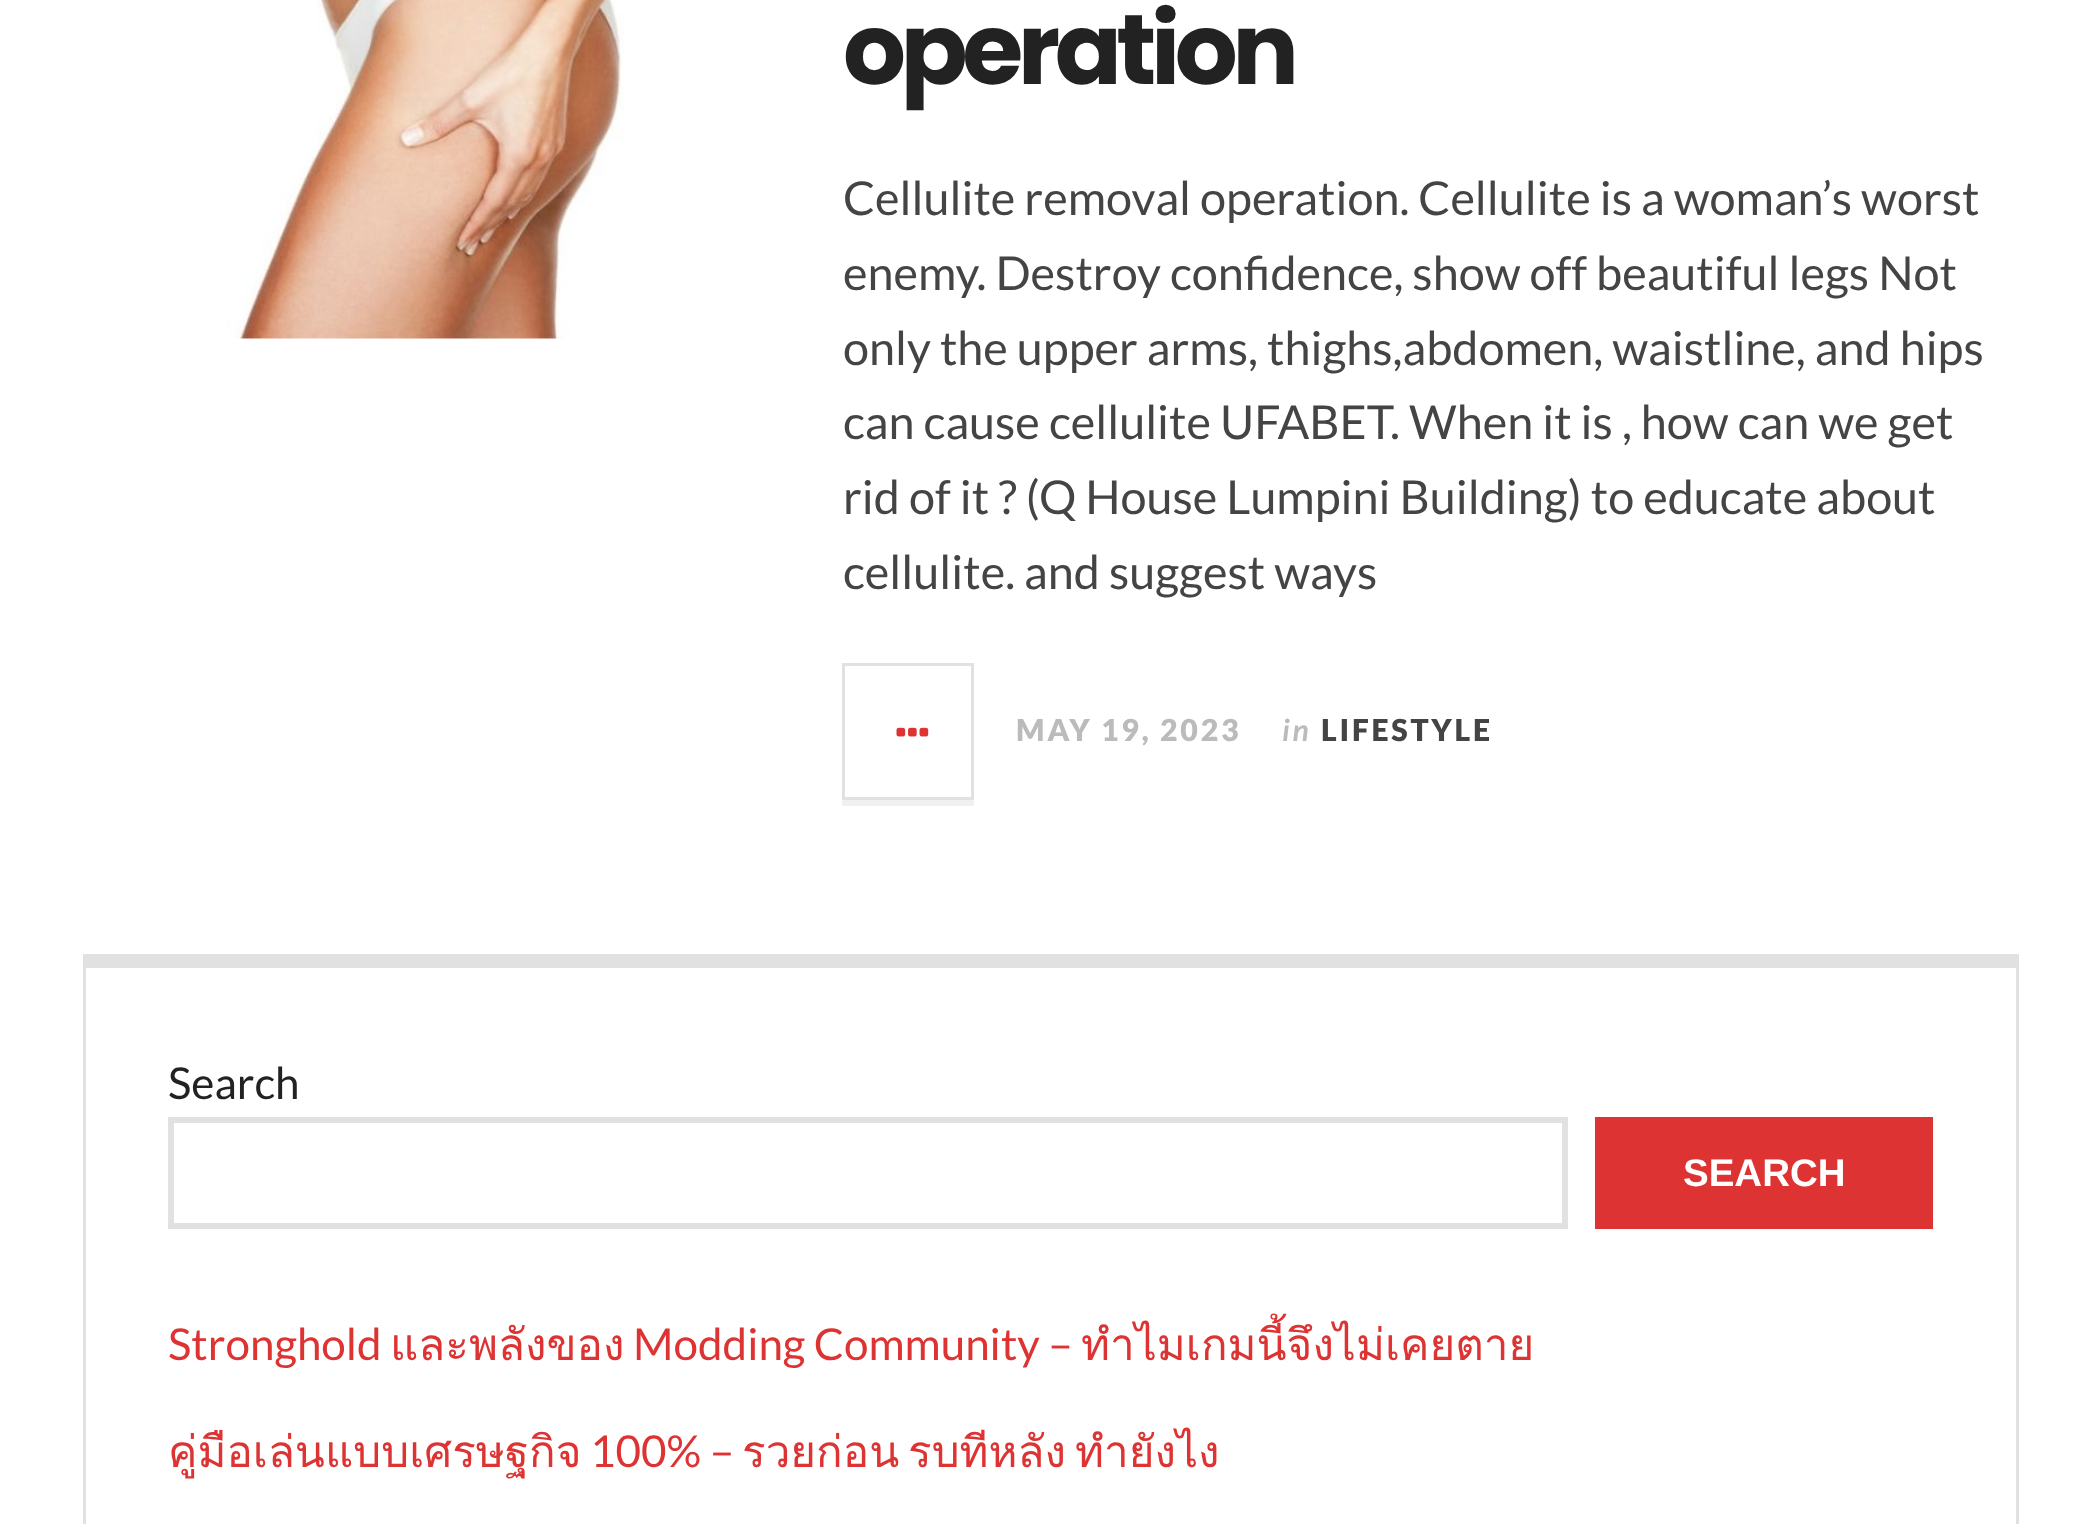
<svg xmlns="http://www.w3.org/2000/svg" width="2100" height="1524">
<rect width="100%" height="100%" fill="#fff"/>
<image x="227" y="0" width="397" height="339" href="media/1.png"/>
<text x="843" y="84" style="font-family:Poppins;font-size:99px;font-weight:bold;letter-spacing:-5.5px;fill:#222">operation</text>
<text x="843" y="215" style="font-family:Lato;font-size:46.75px;fill:#444">Cellulite removal operation. Cellulite is a woman’s worst</text>
<text x="843" y="290" style="font-family:Lato;font-size:46.75px;fill:#444">enemy. Destroy confidence, show off beautiful legs Not</text>
<text x="843" y="365" style="font-family:Lato;font-size:46.75px;fill:#444">only the upper arms, thighs,abdomen, waistline, and hips</text>
<text x="843" y="439" style="font-family:Lato;font-size:46.75px;fill:#444">can cause cellulite UFABET. When it is , how can we get</text>
<text x="843" y="514" style="font-family:Lato;font-size:46.75px;fill:#444">rid of it ? (Q House Lumpini Building) to educate about</text>
<text x="843" y="589" style="font-family:Lato;font-size:46.75px;fill:#444">cellulite. and suggest ways</text>
<path d="M842 800v6h132v-138v132z" fill="#f0f0f0"/>
<rect x="843.5" y="664.5" width="129" height="134" fill="none" stroke="#e1e1e1" stroke-width="3"/>
<image x="896" y="727" width="33" height="10" href="media/2.png"/>
<text x="1016" y="741" style="font-family:Lato;font-size:30.25px;font-weight:900;letter-spacing:2.75px;fill:#bbb">MAY 19, 2023</text>
<text x="1282" y="741" style="font-family:Lato;font-size:30.25px;font-weight:bold;font-style:italic;letter-spacing:2.75px;fill:#bbb">in</text>
<text x="1321" y="741" style="font-family:Lato;font-size:30.25px;font-weight:900;letter-spacing:2.75px;fill:#444">LIFESTYLE</text>
<rect x="86" y="954" width="1930" height="14" fill="#e1e1e1"/>
<rect x="2016" y="954" width="3" height="570" fill="#e1e1e1"/>
<rect x="83" y="954" width="3" height="570" fill="#e1e1e1"/>
<text x="168" y="1099" style="font-family:Lato;font-size:44px;fill:#222">Search</text>
<rect x="171" y="1120" width="1394" height="106" fill="none" stroke="#e1e1e1" stroke-width="6"/>
<rect x="1595" y="1117" width="338" height="112" fill="#d33"/>
<text x="1683" y="1186" style="font-family:Liberation Sans;font-size:38.5px;font-weight:bold;fill:#fff">SEARCH</text>
<text x="168" y="1360" style="font-family:Lato;font-size:44px;fill:#d33">Stronghold</text>
<text x="390" y="1360" style="font-family:Loma;font-size:44px;fill:#d33">และพลังของ</text>
<text x="633" y="1360" style="font-family:Lato;font-size:44px;fill:#d33">Modding Community –</text>
<text x="1081" y="1360" style="font-family:Loma;font-size:44px;fill:#d33">ทำไมเกมนี้จึงไม่เคยตาย</text>
<text x="168" y="1467" style="font-family:Loma;font-size:44px;fill:#d33">คู่มือเล่นแบบเศรษฐกิจ</text>
<text x="590" y="1467" style="font-family:Lato;font-size:44px;fill:#d33">100% –</text>
<text x="742" y="1467" style="font-family:Loma;font-size:44px;fill:#d33">รวยก่อน</text>
<text x="908" y="1467" style="font-family:Loma;font-size:44px;fill:#d33">รบทีหลัง</text>
<text x="1075" y="1467" style="font-family:Loma;font-size:44px;fill:#d33">ทำยังไง</text>
</svg>
